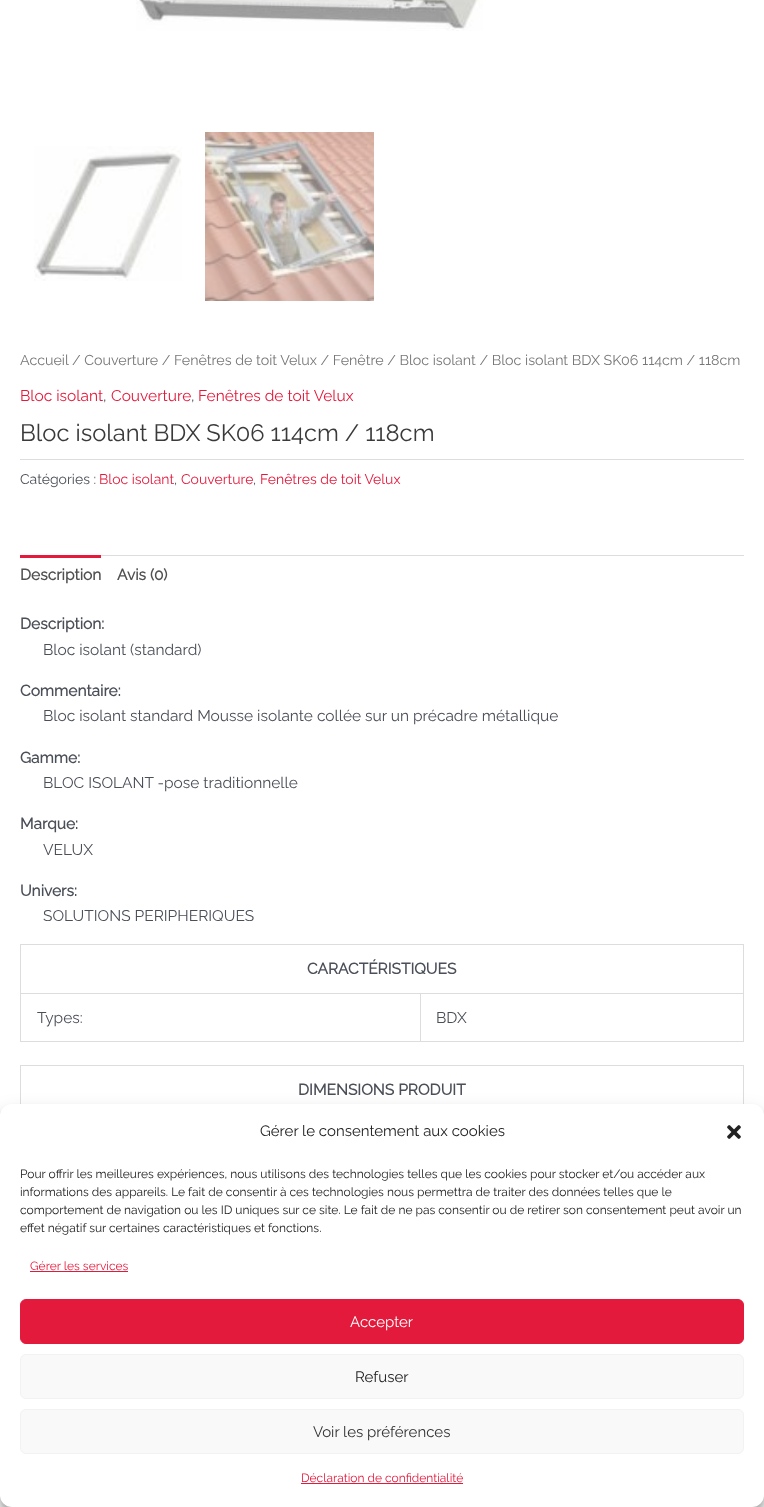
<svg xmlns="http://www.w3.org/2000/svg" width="764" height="1507">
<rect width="100%" height="100%" fill="#fff"/>
<image x="136" y="0" width="347" height="31" href="media/1.png"/>
<image x="34" y="146" width="148" height="135" href="media/2.png"/>
<image x="205" y="132" width="169" height="169" href="media/3.png"/>
<text x="20" y="365" style="font-family:Raleway;font-size:14.25px;font-weight:100;fill:#777">Accueil / Couverture / Fenêtres de toit Velux / Fenêtre / Bloc isolant / Bloc isolant BDX SK06 114cm / 118cm</text>
<text x="20" y="401" style="font-family:Raleway;font-size:15.5px;font-weight:100;fill:#e31a3c">Bloc isolant</text>
<text x="103" y="401" style="font-family:Raleway;font-size:15.5px;font-weight:100;fill:#4b4f58">,</text>
<text x="111" y="401" style="font-family:Raleway;font-size:15.5px;font-weight:100;fill:#e31a3c">Couverture</text>
<text x="191" y="401" style="font-family:Raleway;font-size:15.5px;font-weight:100;fill:#4b4f58">,</text>
<text x="198" y="401" style="font-family:Raleway;font-size:15.5px;font-weight:100;fill:#e31a3c">Fenêtres de toit Velux</text>
<text x="20" y="441" style="font-family:Raleway;font-size:23.75px;font-weight:100;fill:#3a3a3a">Bloc isolant BDX SK06 114cm / 118cm</text>
<rect x="20" y="459" width="724" height="1" fill="#ddd"/>
<text x="20" y="484" style="font-family:Raleway;font-size:14px;font-weight:100;fill:#4b4f58">Catégories :</text>
<text x="99" y="484" style="font-family:Raleway;font-size:14px;font-weight:100;fill:#e31a3c">Bloc isolant</text>
<text x="174" y="484" style="font-family:Raleway;font-size:14px;font-weight:100;fill:#4b4f58">,</text>
<text x="181" y="484" style="font-family:Raleway;font-size:14px;font-weight:100;fill:#e31a3c">Couverture</text>
<text x="253" y="484" style="font-family:Raleway;font-size:14px;font-weight:100;fill:#4b4f58">,</text>
<text x="260" y="484" style="font-family:Raleway;font-size:14px;font-weight:100;fill:#e31a3c">Fenêtres de toit Velux</text>
<rect x="101" y="555" width="643" height="1" fill="#ddd"/>
<rect x="20" y="555" width="81" height="3" fill="#e31a3c"/>
<text x="20" y="580" style="font-family:Raleway;font-size:15.5px;font-weight:bold;fill:#515151">Description</text>
<text x="117" y="580" style="font-family:Raleway;font-size:15.5px;font-weight:bold;fill:#515151">Avis (0)</text>
<text x="20" y="629" style="font-family:Raleway;font-size:15.5px;font-weight:bold;fill:#4b4f58">Description:</text>
<text x="43" y="655" style="font-family:Raleway;font-size:15.5px;font-weight:100;fill:#4b4f58">Bloc isolant (standard)</text>
<text x="20" y="696" style="font-family:Raleway;font-size:15.5px;font-weight:bold;fill:#4b4f58">Commentaire:</text>
<text x="43" y="721" style="font-family:Raleway;font-size:15.5px;font-weight:100;fill:#4b4f58">Bloc isolant standard Mousse isolante collée sur un précadre métallique</text>
<text x="20" y="763" style="font-family:Raleway;font-size:15.5px;font-weight:bold;fill:#4b4f58">Gamme:</text>
<text x="43" y="788" style="font-family:Raleway;font-size:15.5px;font-weight:100;fill:#4b4f58">BLOC ISOLANT -pose traditionnelle</text>
<text x="20" y="829" style="font-family:Raleway;font-size:15.5px;font-weight:bold;fill:#4b4f58">Marque:</text>
<text x="43" y="855" style="font-family:Raleway;font-size:15.5px;font-weight:100;fill:#4b4f58">VELUX</text>
<text x="20" y="896" style="font-family:Raleway;font-size:15.5px;font-weight:bold;fill:#4b4f58">Univers:</text>
<text x="43" y="921" style="font-family:Raleway;font-size:15.5px;font-weight:100;fill:#4b4f58">SOLUTIONS PERIPHERIQUES</text>
<rect x="20" y="944" width="724" height="1" fill="#ddd"/>
<rect x="20" y="944" width="1" height="98" fill="#ddd"/>
<rect x="743" y="945" width="1" height="97" fill="#ddd"/>
<rect x="21" y="993" width="723" height="1" fill="#ddd"/>
<text x="307" y="974" style="font-family:Raleway;font-size:15.5px;font-weight:bold;fill:#4b4f58">CARACTÉRISTIQUES</text>
<rect x="420" y="994" width="1" height="48" fill="#ddd"/>
<rect x="21" y="1041" width="723" height="1" fill="#ddd"/>
<text x="37" y="1023" style="font-family:Raleway;font-size:15.5px;font-weight:100;fill:#4b4f58">Types:</text>
<text x="436" y="1023" style="font-family:Raleway;font-size:15.5px;font-weight:100;fill:#4b4f58">BDX</text>
<rect x="20" y="1065" width="724" height="1" fill="#ddd"/>
<rect x="20" y="1065" width="1" height="39" fill="#ddd"/>
<rect x="743" y="1066" width="1" height="38" fill="#ddd"/>
<text x="298" y="1095" style="font-family:Raleway;font-size:15.5px;font-weight:bold;fill:#4b4f58">DIMENSIONS PRODUIT</text>
<rect y="1110" width="764" height="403" rx="12" fill="#0000003b" filter="blur(3px)"/>
<rect y="1114" width="764" height="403" rx="12" fill="#00000030" filter="blur(10px)"/>
<rect y="1104" width="764" height="403" rx="12" fill="#fff"/>
<text x="260" y="1136" style="font-family:Raleway;font-size:15px;font-weight:100;fill:#222">Gérer le consentement aux cookies</text>
<image x="727" y="1125" width="14" height="14" href="media/4.png"/>
<text x="20" y="1178" style="font-family:Raleway;font-size:12px;font-weight:100;fill:#222">Pour offrir les meilleures expériences, nous utilisons des technologies telles que les cookies pour stocker et/ou accéder aux</text>
<text x="20" y="1196" style="font-family:Raleway;font-size:12px;font-weight:100;fill:#222">informations des appareils. Le fait de consentir à ces technologies nous permettra de traiter des données telles que le</text>
<text x="20" y="1214" style="font-family:Raleway;font-size:12px;font-weight:100;fill:#222">comportement de navigation ou les ID uniques sur ce site. Le fait de ne pas consentir ou de retirer son consentement peut avoir un</text>
<text x="20" y="1232" style="font-family:Raleway;font-size:12px;font-weight:100;fill:#222">effet négatif sur certaines caractéristiques et fonctions.</text>
<text x="30" y="1270" style="font-family:Raleway;font-size:12px;font-weight:100;fill:#e31a3c">Gérer les services</text>
<rect x="30" y="1271" width="98" height="1" fill="#e31a3c"/>
<rect x="20.5" y="1299.5" width="723" height="44" rx="5.5" fill="#e31a3c" stroke="#e31a3c"/>
<text x="350" y="1327" style="font-family:Raleway;font-size:15px;font-weight:100;fill:#fff">Accepter</text>
<rect x="20.5" y="1354.5" width="723" height="44" rx="5.5" fill="#f9f9f9" stroke="#f2f2f2"/>
<text x="355" y="1382" style="font-family:Raleway;font-size:15px;font-weight:100;fill:#222">Refuser</text>
<rect x="20.5" y="1409.5" width="723" height="44" rx="5.5" fill="#f9f9f9" stroke="#f2f2f2"/>
<text x="313" y="1437" style="font-family:Raleway;font-size:15px;font-weight:100;fill:#333">Voir les préférences</text>
<text x="301" y="1482" style="font-family:Raleway;font-size:12px;font-weight:100;fill:#e31a3c">Déclaration de confidentialité</text>
<rect x="301" y="1483" width="162" height="1" fill="#e31a3c"/>
</svg>
